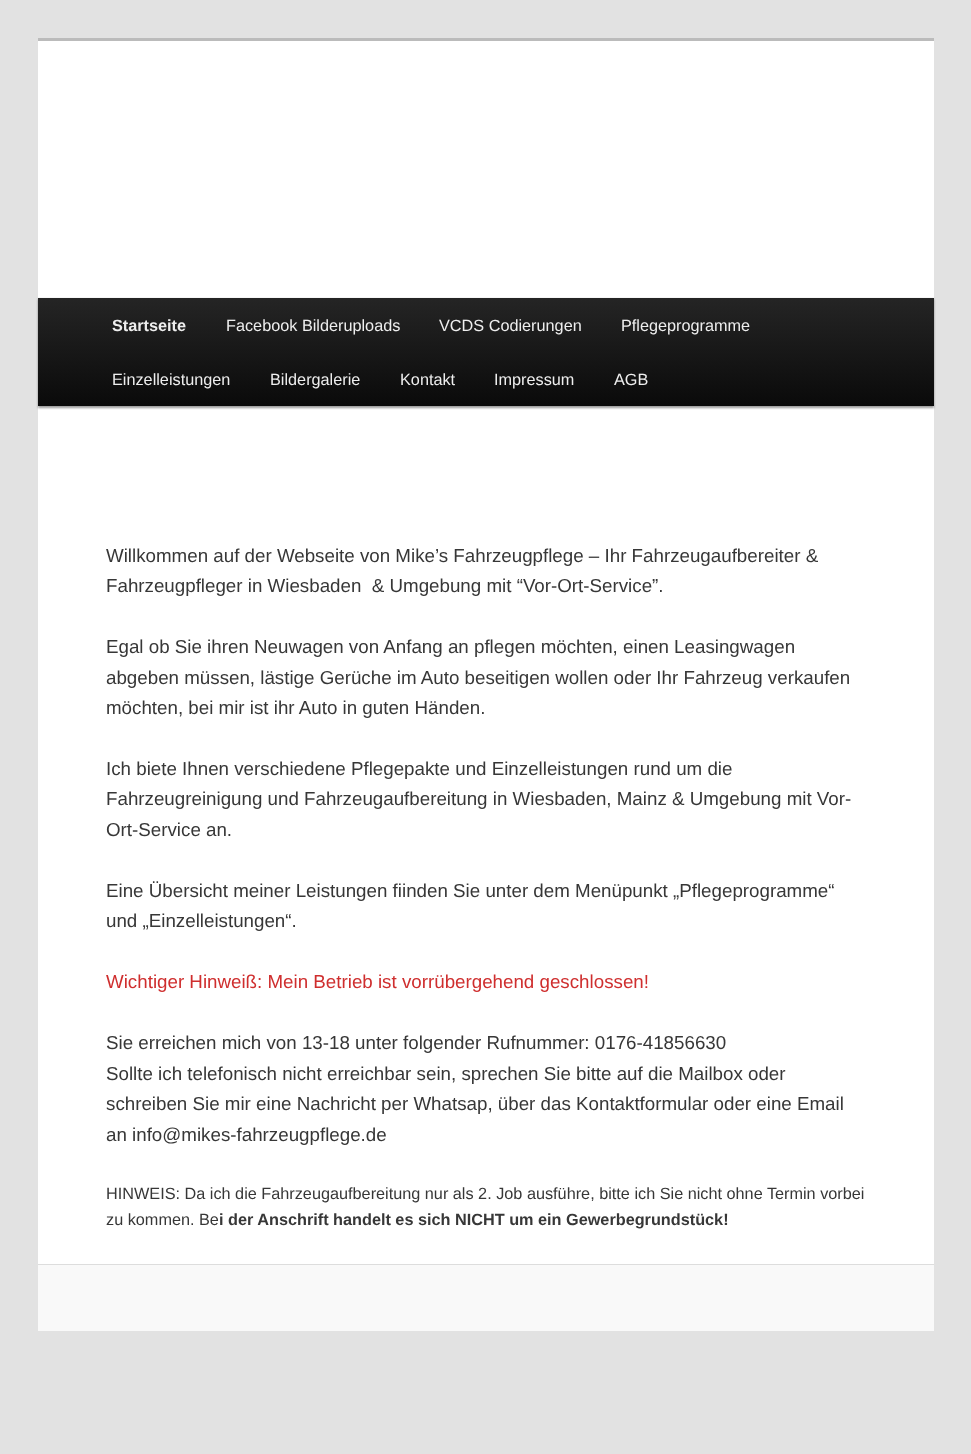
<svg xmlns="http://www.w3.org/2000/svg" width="971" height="1454">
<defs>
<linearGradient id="g1" gradientUnits="userSpaceOnUse" x1="486" y1="297" x2="486" y2="406"><stop offset="0" stop-color="#252525"/><stop offset="1" stop-color="#0a0a0a"/></linearGradient>
</defs>
<rect width="100%" height="100%" fill="#e2e2e2"/>
<rect x="38" y="41" width="896" height="1223" fill="#fff"/>
<rect x="38" y="38" width="896" height="3" fill="#bbb"/>
<rect x="38" y="299" width="896" height="109" fill="#00000066" filter="blur(1px)"/>
<rect x="38" y="298" width="896" height="108" fill="url(#g1)"/>
<text x="112" y="331" style="font-family:Liberation Sans;font-size:16.25px;font-weight:bold;fill:#eee">Startseite</text>
<text x="226" y="331" style="font-family:Liberation Sans;font-size:16.25px;fill:#eee">Facebook Bilderuploads</text>
<text x="439" y="331" style="font-family:Liberation Sans;font-size:16.25px;fill:#eee">VCDS Codierungen</text>
<text x="621" y="331" style="font-family:Liberation Sans;font-size:16.25px;fill:#eee">Pflegeprogramme</text>
<text x="112" y="385" style="font-family:Liberation Sans;font-size:16.25px;fill:#eee">Einzelleistungen</text>
<text x="270" y="385" style="font-family:Liberation Sans;font-size:16.25px;fill:#eee">Bildergalerie</text>
<text x="400" y="385" style="font-family:Liberation Sans;font-size:16.25px;fill:#eee">Kontakt</text>
<text x="494" y="385" style="font-family:Liberation Sans;font-size:16.25px;fill:#eee">Impressum</text>
<text x="614" y="385" style="font-family:Liberation Sans;font-size:16.25px;fill:#eee">AGB</text>
<text x="106" y="562" style="font-family:Liberation Sans;font-size:18.75px;fill:#373737">Willkommen auf der Webseite von Mike’s Fahrzeugpflege – Ihr Fahrzeugaufbereiter &amp;</text>
<text x="106" y="592" style="font-family:Liberation Sans;font-size:18.75px;fill:#373737" xml:space="preserve">Fahrzeugpfleger in Wiesbaden  &amp; Umgebung mit “Vor-Ort-Service”.</text>
<text x="106" y="653" style="font-family:Liberation Sans;font-size:18.75px;fill:#373737">Egal ob Sie ihren Neuwagen von Anfang an pflegen möchten, einen Leasingwagen</text>
<text x="106" y="684" style="font-family:Liberation Sans;font-size:18.75px;fill:#373737">abgeben müssen, lästige Gerüche im Auto beseitigen wollen oder Ihr Fahrzeug verkaufen</text>
<text x="106" y="714" style="font-family:Liberation Sans;font-size:18.75px;fill:#373737">möchten, bei mir ist ihr Auto in guten Händen.</text>
<text x="106" y="775" style="font-family:Liberation Sans;font-size:18.75px;fill:#373737">Ich biete Ihnen verschiedene Pflegepakte und Einzelleistungen rund um die</text>
<text x="106" y="805" style="font-family:Liberation Sans;font-size:18.75px;fill:#373737">Fahrzeugreinigung und Fahrzeugaufbereitung in Wiesbaden, Mainz &amp; Umgebung mit Vor-</text>
<text x="106" y="836" style="font-family:Liberation Sans;font-size:18.75px;fill:#373737">Ort-Service an.</text>
<text x="106" y="897" style="font-family:Liberation Sans;font-size:18.75px;fill:#373737">Eine Übersicht meiner Leistungen fiinden Sie unter dem Menüpunkt „Pflegeprogramme“</text>
<text x="106" y="927" style="font-family:Liberation Sans;font-size:18.75px;fill:#373737">und „Einzelleistungen“.</text>
<text x="106" y="988" style="font-family:Liberation Sans;font-size:18.75px;fill:#cf2e2e">Wichtiger Hinweiß: Mein Betrieb ist vorrübergehend geschlossen!</text>
<text x="106" y="1049" style="font-family:Liberation Sans;font-size:18.75px;fill:#373737">Sie erreichen mich von 13-18 unter folgender Rufnummer: 0176-41856630</text>
<text x="106" y="1080" style="font-family:Liberation Sans;font-size:18.75px;fill:#373737">Sollte ich telefonisch nicht erreichbar sein, sprechen Sie bitte auf die Mailbox oder</text>
<text x="106" y="1110" style="font-family:Liberation Sans;font-size:18.75px;fill:#373737">schreiben Sie mir eine Nachricht per Whatsap, über das Kontaktformular oder eine Email</text>
<text x="106" y="1141" style="font-family:Liberation Sans;font-size:18.75px;fill:#373737">an info@mikes-fahrzeugpflege.de</text>
<text x="106" y="1199" style="font-family:Liberation Sans;font-size:16.25px;fill:#373737">HINWEIS: Da ich die Fahrzeugaufbereitung nur als 2. Job ausführe, bitte ich Sie nicht ohne Termin vorbei</text>
<text x="106" y="1225" style="font-family:Liberation Sans;font-size:16.25px;fill:#373737">zu kommen. Be</text>
<text x="219" y="1225" style="font-family:Liberation Sans;font-size:16.25px;font-weight:bold;fill:#373737">i der Anschrift handelt es sich NICHT um ein Gewerbegrundstück!</text>
<rect x="38" y="1265" width="896" height="66" fill="#f9f9f9"/>
<rect x="38" y="1264" width="896" height="1" fill="#ddd"/>
</svg>
